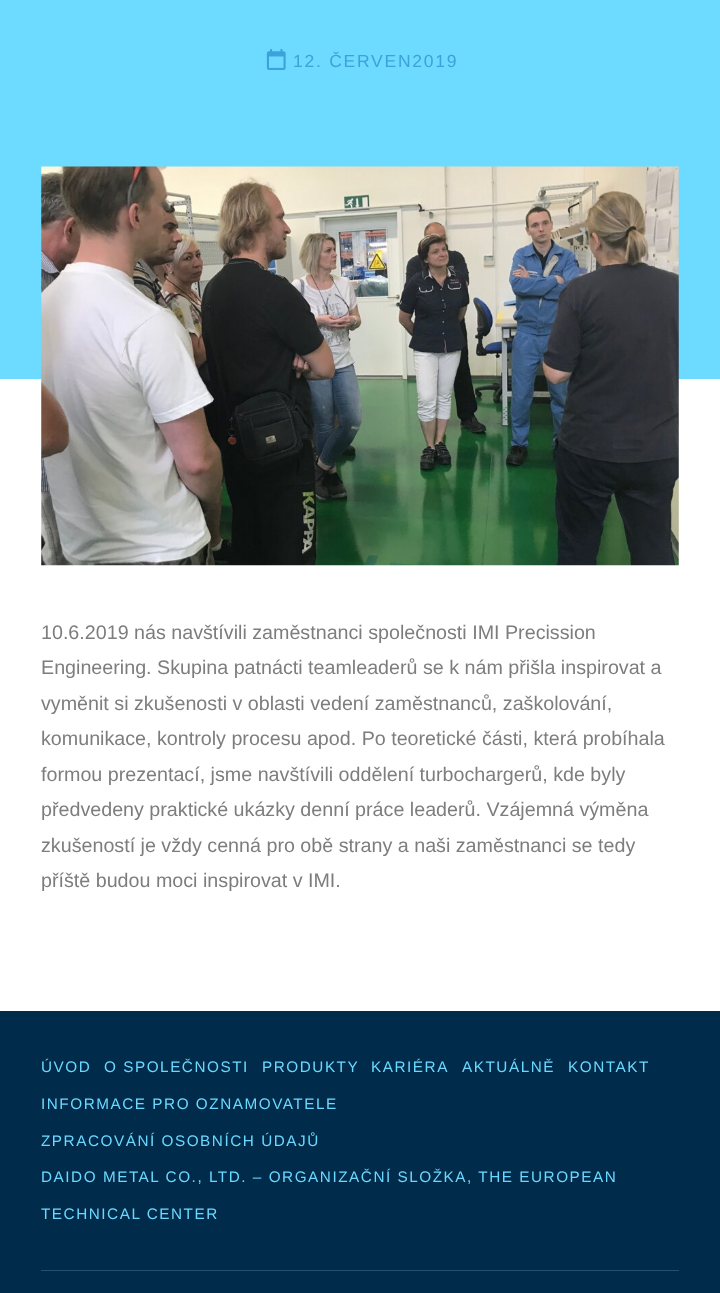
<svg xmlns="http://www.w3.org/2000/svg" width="720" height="1293">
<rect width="100%" height="100%" fill="#fff"/>
<rect width="720" height="379" fill="#6ddaff"/>
<image x="266" y="49" width="20" height="21" href="media/1.png"/>
<text x="293" y="67" style="font-family:Liberation Sans;font-size:17.5px;letter-spacing:1.75px;fill:#3da2d9">12. ČERVEN2019</text>
<image x="41" y="166" width="638" height="400" href="media/2.png"/>
<text x="41" y="639" style="font-family:Liberation Sans;font-size:19.7px;fill:#7e7d7d">10.6.2019 nás navštívili zaměstnanci společnosti IMI Precission</text>
<text x="41" y="674" style="font-family:Liberation Sans;font-size:19.7px;fill:#7e7d7d">Engineering. Skupina patnácti teamleaderů se k nám přišla inspirovat a</text>
<text x="41" y="710" style="font-family:Liberation Sans;font-size:19.7px;fill:#7e7d7d">vyměnit si zkušenosti v oblasti vedení zaměstnanců, zaškolování,</text>
<text x="41" y="745" style="font-family:Liberation Sans;font-size:19.7px;fill:#7e7d7d">komunikace, kontroly procesu apod. Po teoretické části, která probíhala</text>
<text x="41" y="781" style="font-family:Liberation Sans;font-size:19.7px;fill:#7e7d7d">formou prezentací, jsme navštívili oddělení turbochargerů, kde byly</text>
<text x="41" y="816" style="font-family:Liberation Sans;font-size:19.7px;fill:#7e7d7d">předvedeny praktické ukázky denní práce leaderů. Vzájemná výměna</text>
<text x="41" y="852" style="font-family:Liberation Sans;font-size:19.7px;fill:#7e7d7d">zkušeností je vždy cenná pro obě strany a naši zaměstnanci se tedy</text>
<text x="41" y="887" style="font-family:Liberation Sans;font-size:19.7px;fill:#7e7d7d">příště budou moci inspirovat v IMI.</text>
<rect y="1011" width="720" height="282" fill="#012b4b"/>
<text x="41" y="1072" style="font-family:Liberation Sans;font-size:15.3px;letter-spacing:1.53px;fill:#6bd9ff">ÚVOD</text>
<text x="104" y="1072" style="font-family:Liberation Sans;font-size:15.3px;letter-spacing:1.53px;fill:#6bd9ff">O SPOLEČNOSTI</text>
<text x="262" y="1072" style="font-family:Liberation Sans;font-size:15.3px;letter-spacing:1.53px;fill:#6bd9ff">PRODUKTY</text>
<text x="371" y="1072" style="font-family:Liberation Sans;font-size:15.3px;letter-spacing:1.53px;fill:#6bd9ff">KARIÉRA</text>
<text x="462" y="1072" style="font-family:Liberation Sans;font-size:15.3px;letter-spacing:1.53px;fill:#6bd9ff">AKTUÁLNĚ</text>
<text x="568" y="1072" style="font-family:Liberation Sans;font-size:15.3px;letter-spacing:1.53px;fill:#6bd9ff">KONTAKT</text>
<text x="41" y="1109" style="font-family:Liberation Sans;font-size:15.3px;letter-spacing:1.53px;fill:#6bd9ff">INFORMACE PRO OZNAMOVATELE</text>
<text x="41" y="1146" style="font-family:Liberation Sans;font-size:15.3px;letter-spacing:1.53px;fill:#6bd9ff">ZPRACOVÁNÍ OSOBNÍCH ÚDAJŮ</text>
<text x="41" y="1182" style="font-family:Liberation Sans;font-size:15.3px;letter-spacing:1.53px;fill:#6bd9ff">DAIDO METAL CO., LTD. – ORGANIZAČNÍ SLOŽKA, THE EUROPEAN</text>
<text x="41" y="1219" style="font-family:Liberation Sans;font-size:15.3px;letter-spacing:1.53px;fill:#6bd9ff">TECHNICAL CENTER</text>
<rect x="41" y="1270" width="638" height="1" fill="#2a4f6c"/>
</svg>
